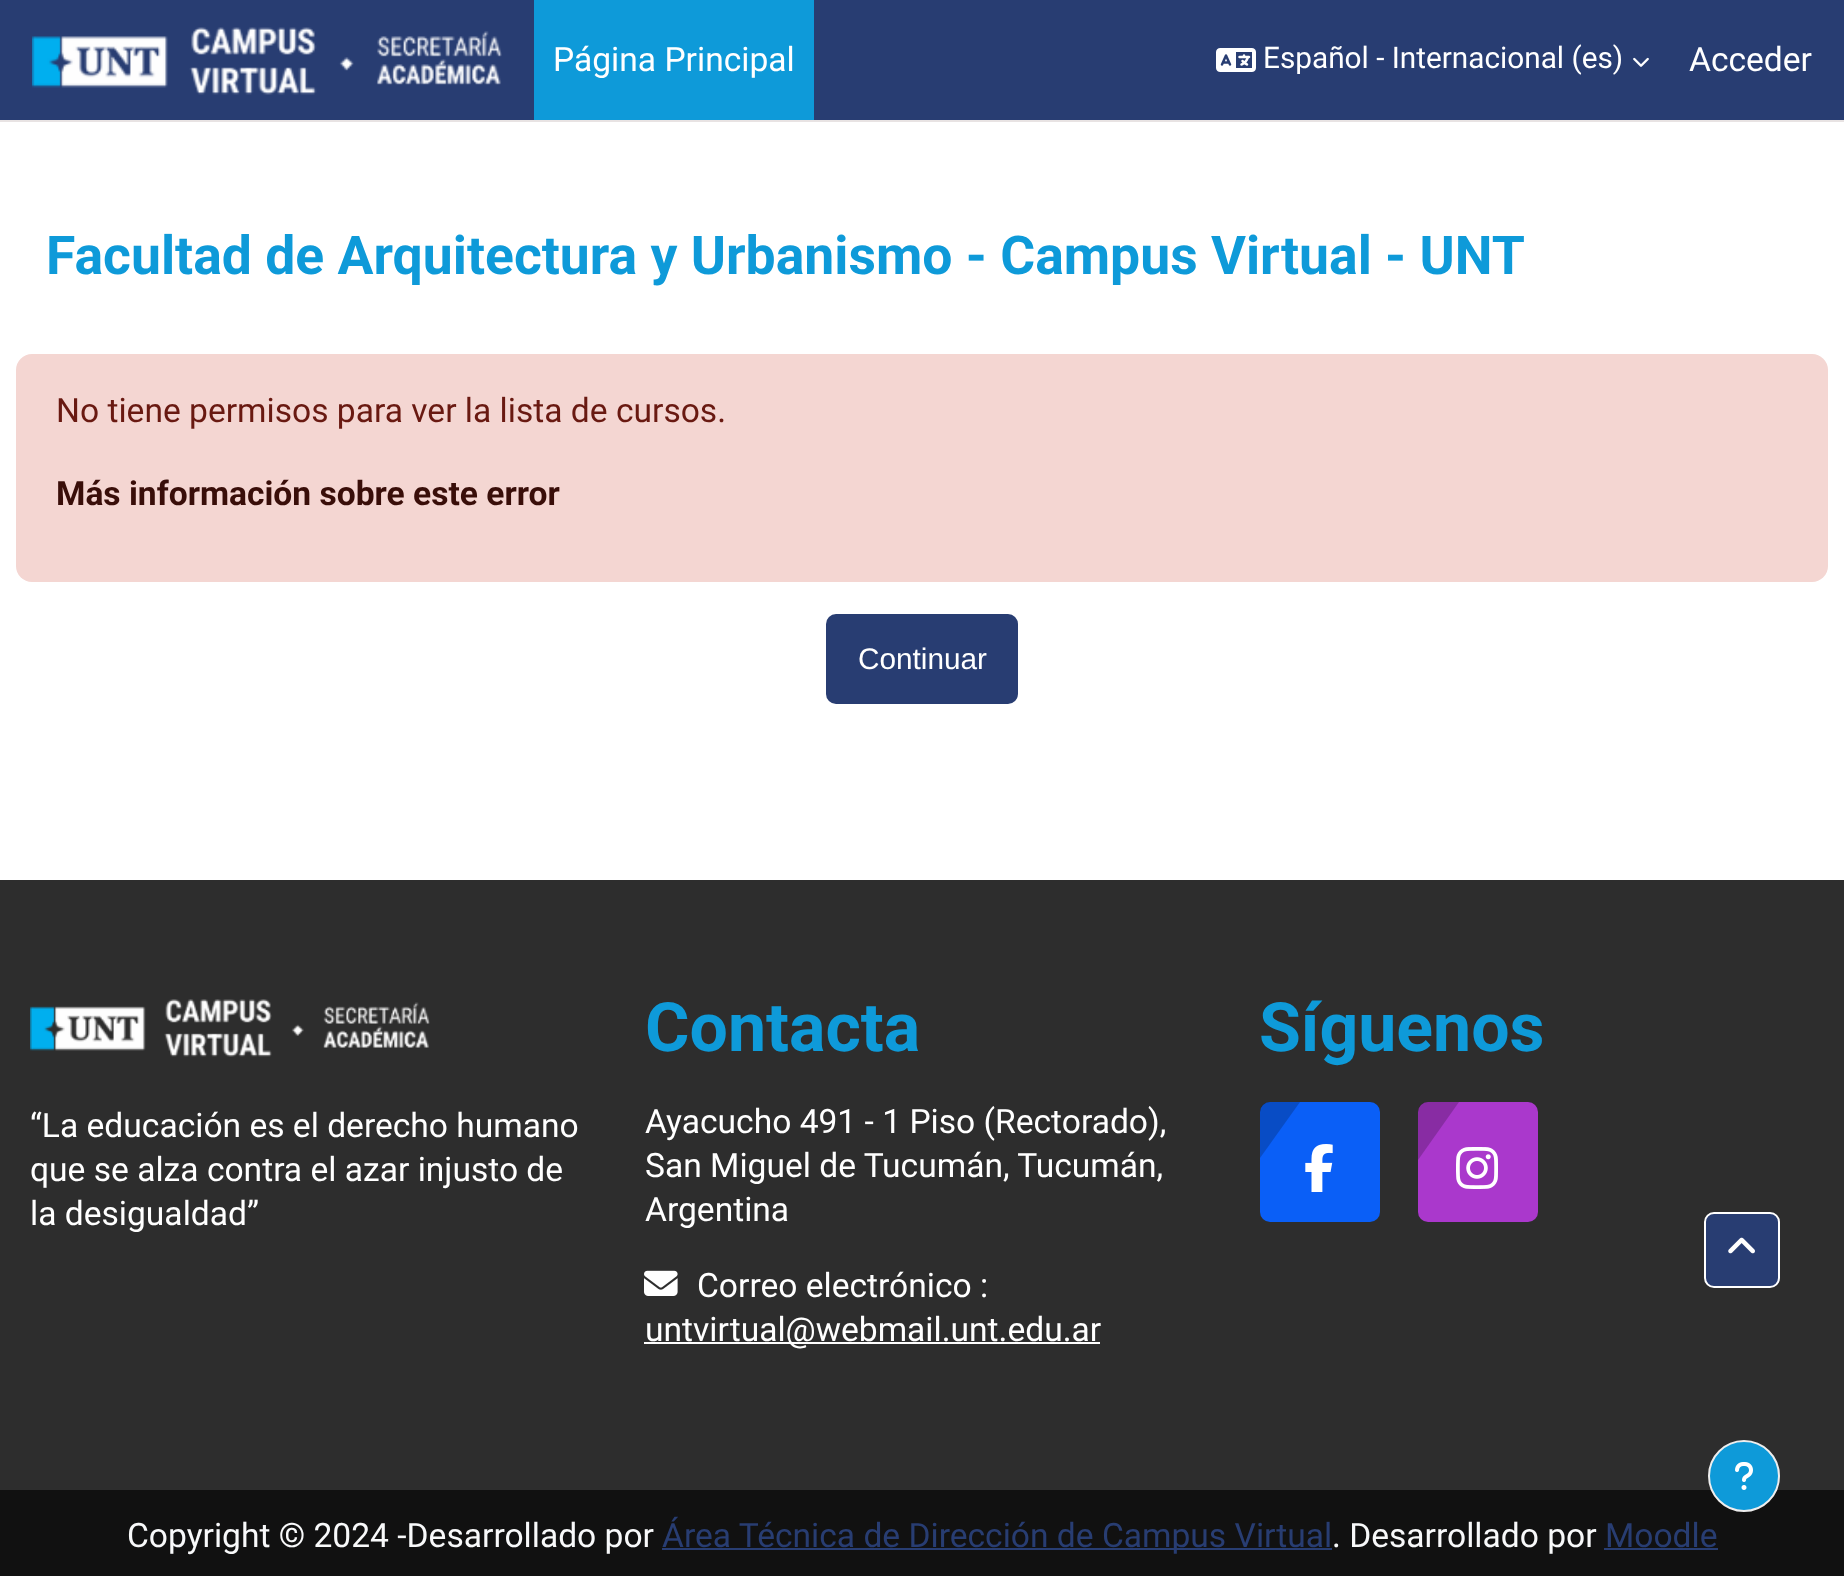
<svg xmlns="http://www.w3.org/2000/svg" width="1844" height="1576">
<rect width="100%" height="100%" fill="#fff"/>
<rect width="1844" height="120" fill="#283d72"/>
<rect y="120" width="1844" height="2" fill="#e8e3e3"/>
<image x="32" y="27" width="470" height="68" href="media/1.png"/>
<rect x="534" width="280" height="120" fill="#0e9ad9"/>
<text x="553" y="71" style="font-family:Roboto;font-size:33.6px;fill:#fff">Página Principal</text>
<image x="1216" y="48" width="40" height="24" href="media/2.png"/>
<text x="1263" y="68" style="font-family:Roboto;font-size:29.75px;fill:#fff">Español - Internacional (es)</text>
<image x="1633" y="57" width="16" height="10" href="media/3.png"/>
<text x="1689" y="71" style="font-family:Roboto;font-size:33.6px;fill:#fff">Acceder</text>
<text x="46" y="274" style="font-family:Roboto;font-size:53.5px;font-weight:bold;fill:#0e9ad9">Facultad de Arquitectura y Urbanismo - Campus Virtual - UNT</text>
<rect x="16" y="354" width="1812" height="228" rx="16" fill="#f4d6d2"/>
<text x="56" y="422" style="font-family:Roboto;font-size:33.6px;fill:#691911">No tiene permisos para ver la lista de cursos.</text>
<text x="56" y="505" style="font-family:Roboto;font-size:33.6px;font-weight:bold;fill:#390e09">Más información sobre este error</text>
<rect x="826" y="614" width="192" height="90" rx="10" fill="#283d72"/>
<text x="858" y="669" style="font-family:Liberation Sans;font-size:29.75px;fill:#fff">Continuar</text>
<rect y="880" width="1844" height="610" fill="#2d2d2d"/>
<image x="30" y="999" width="400" height="58" href="media/4.png"/>
<text x="30" y="1137" style="font-family:Roboto;font-size:33.6px;fill:#fff">“La educación es el derecho humano</text>
<text x="30" y="1181" style="font-family:Roboto;font-size:33.6px;fill:#fff">que se alza contra el azar injusto de</text>
<text x="30" y="1225" style="font-family:Roboto;font-size:33.6px;fill:#fff">la desigualdad”</text>
<text x="645" y="1051" style="font-family:Roboto;font-size:68px;font-weight:bold;fill:#0e9ad9">Contacta</text>
<text x="645" y="1133" style="font-family:Roboto;font-size:33.6px;fill:#fff">Ayacucho 491 - 1 Piso (Rectorado),</text>
<text x="645" y="1177" style="font-family:Roboto;font-size:33.6px;fill:#fff">San Miguel de Tucumán, Tucumán,</text>
<text x="645" y="1221" style="font-family:Roboto;font-size:33.6px;fill:#fff">Argentina</text>
<image x="644" y="1270" width="34" height="26" href="media/5.png"/>
<text x="697" y="1297" style="font-family:Roboto;font-size:33.6px;fill:#fff">Correo electrónico :</text>
<rect x="644" y="1342" width="456" height="2" fill="#fff"/>
<text x="645" y="1341" style="font-family:Roboto;font-size:33.6px;fill:#fff">untvirtual@webmail.unt.edu.ar</text>
<text x="1259" y="1051" style="font-family:Roboto;font-size:68px;font-weight:bold;fill:#0e9ad9">Síguenos</text>
<rect x="1260" y="1102" width="120" height="120" rx="10" fill="#0a5ff7"/>
<image x="1305" y="1144" width="28" height="48" href="media/6.png"/>
<path d="M1270 1102h30l-40 56v-46c0-6 4-10 10-10z" fill="#00000033"/>
<rect x="1418" y="1102" width="120" height="120" rx="10" fill="#aa38cc"/>
<image x="1456" y="1147" width="42" height="42" href="media/7.png"/>
<path d="M1428 1102h31l-41 58v-48c0-6 4-10 10-10z" fill="#00000033"/>
<rect y="1490" width="1844" height="86" fill="#111"/>
<circle cx="1744" cy="1476" r="35" fill="#0e9ad9" stroke="#eee" stroke-width="2"/>
<image x="1735" y="1462" width="18" height="28" href="media/8.png"/>
<text x="127" y="1547" style="font-family:Roboto;font-size:33.6px;fill:#f8f9fa">Copyright © 2024 -Desarrollado por</text>
<rect x="662" y="1548" width="670" height="2" fill="#283d72"/>
<text x="662" y="1547" style="font-family:Roboto;font-size:33.6px;fill:#283d72">Área Técnica de Dirección de Campus Virtual</text>
<text x="1332" y="1547" style="font-family:Roboto;font-size:33.6px;fill:#f8f9fa">. Desarrollado por</text>
<text x="1605" y="1547" style="font-family:Roboto;font-size:33.6px;fill:#283d72">Moodle</text>
<rect x="1604" y="1548" width="114" height="2" fill="#283d72"/>
<rect x="1705" y="1213" width="74" height="74" rx="9" fill="#283d72" stroke="#fff" stroke-width="2"/>
<image x="1728" y="1237" width="27" height="17" href="media/9.png"/>
</svg>
